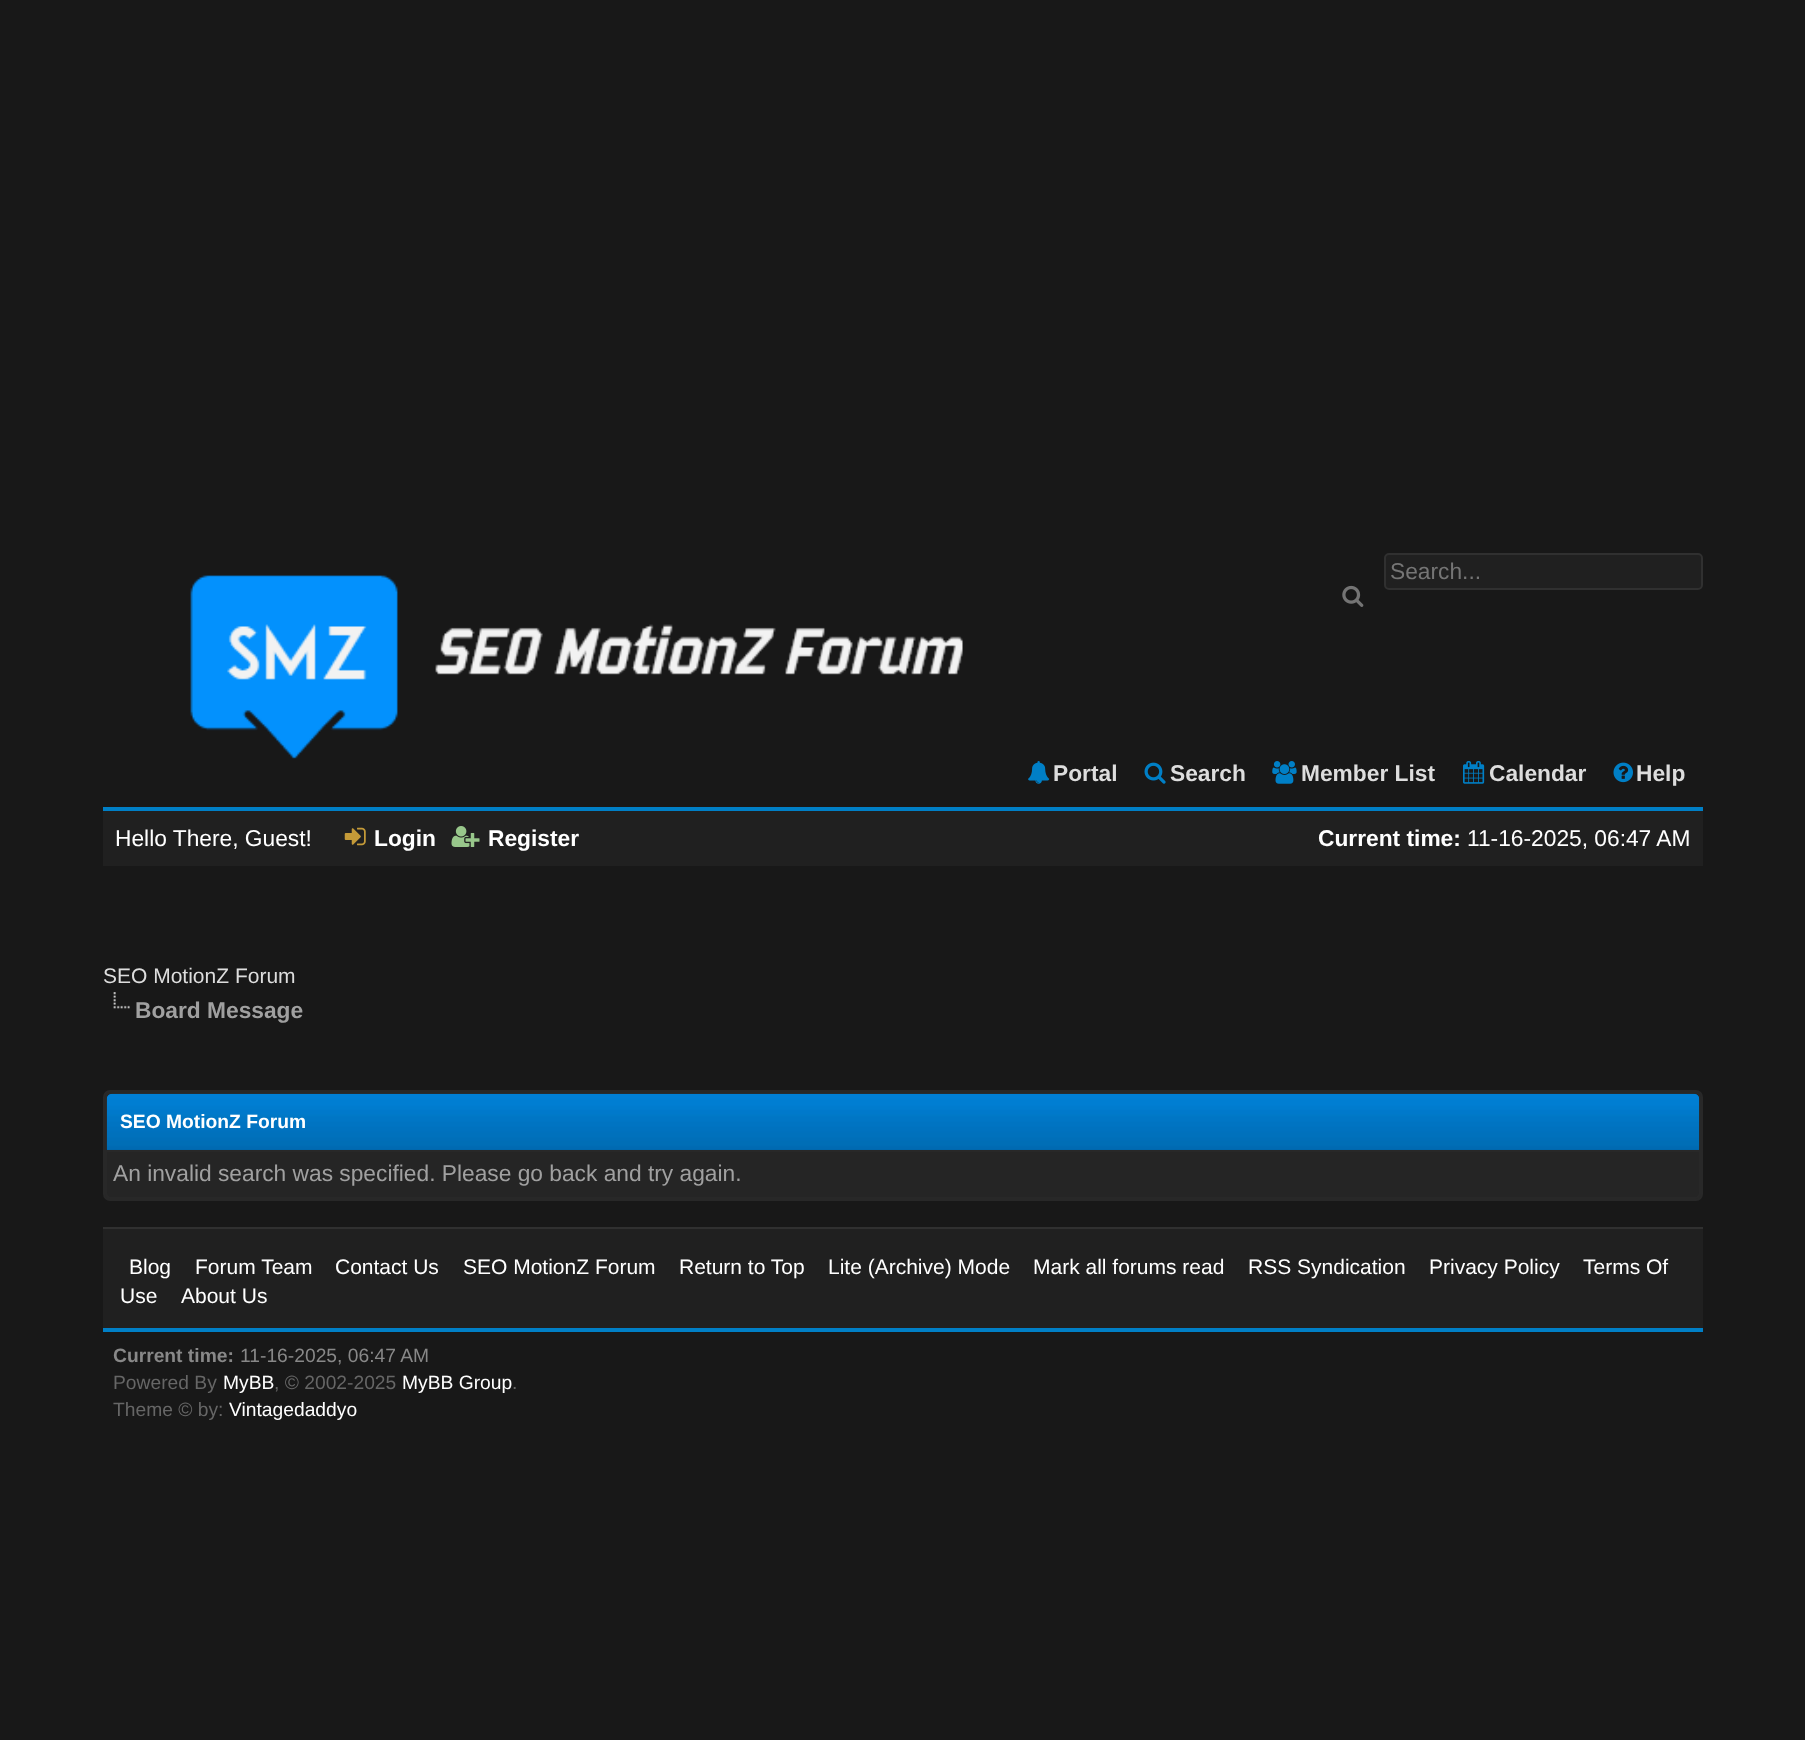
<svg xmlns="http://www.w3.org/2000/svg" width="1805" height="1740">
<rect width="100%" height="100%" fill="#181818"/>
<rect x="1385" y="554" width="317" height="35" rx="4" fill="#202020" stroke="#303030" stroke-width="2"/>
<text x="1390" y="579" style="font-family:Liberation Sans;font-size:22.75px;fill:#757575">Search...</text>
<image x="1342" y="585" width="22" height="22" href="media/1.png"/>
<image x="190" y="575" width="773" height="184" href="media/2.png"/>
<image x="1028" y="761" width="22" height="23" href="media/3.png"/>
<text x="1053" y="781" style="font-family:Liberation Sans;font-size:22.75px;font-weight:bold;fill:#ddd">Portal</text>
<image x="1144" y="762" width="22" height="22" href="media/4.png"/>
<text x="1170" y="781" style="font-family:Liberation Sans;font-size:22.75px;font-weight:bold;fill:#ddd">Search</text>
<image x="1272" y="761" width="25" height="23" href="media/5.png"/>
<text x="1301" y="781" style="font-family:Liberation Sans;font-size:22.75px;font-weight:bold;fill:#ddd">Member List</text>
<image x="1463" y="761" width="22" height="23" href="media/6.png"/>
<text x="1489" y="781" style="font-family:Liberation Sans;font-size:22.75px;font-weight:bold;fill:#ddd">Calendar</text>
<image x="1613" y="762" width="20" height="21" href="media/7.png"/>
<text x="1636" y="781" style="font-family:Liberation Sans;font-size:22.75px;font-weight:bold;fill:#ddd">Help</text>
<rect x="103" y="811" width="1600" height="55" fill="#202020"/>
<rect x="103" y="807" width="1600" height="4" fill="#007fc6"/>
<text x="115" y="846" style="font-family:Liberation Sans;font-size:22.75px;fill:#fff">Hello There, Guest!</text>
<image x="344" y="827" width="22" height="19" href="media/8.png"/>
<text x="374" y="846" style="font-family:Liberation Sans;font-size:22.75px;font-weight:bold;fill:#fff">Login</text>
<image x="451" y="826" width="29" height="21" href="media/9.png"/>
<text x="488" y="846" style="font-family:Liberation Sans;font-size:22.75px;font-weight:bold;fill:#fff">Register</text>
<text x="1318" y="846" style="font-family:Liberation Sans;font-size:22.75px;font-weight:bold;fill:#fff">Current time:</text>
<text x="1467" y="846" style="font-family:Liberation Sans;font-size:22.75px;fill:#fff">11-16-2025, 06:47 AM</text>
<text x="103" y="983" style="font-family:Liberation Sans;font-size:21px;fill:#ddd">SEO MotionZ Forum</text>
<image x="113" y="992" width="17" height="17" href="media/10.png"/>
<text x="135" y="1018" style="font-family:Liberation Sans;font-size:22.75px;font-weight:bold;fill:#a0a0a0">Board Message</text>
<rect x="104" y="1091" width="1598" height="109" rx="6" fill="#282828" stroke="#282828" stroke-width="2"/>
<path d="M112 1094h1582c3 0 5 2 5 5v51h-1592v-51c0-3 2-5 5-5z" fill="#0065a8"/>
<image x="106" y="1093" width="1594" height="57" href="media/11.png"/>
<text x="120" y="1128" style="font-family:Liberation Sans;font-size:19.25px;font-weight:bold;fill:#fff">SEO MotionZ Forum</text>
<path d="M107 1152h1592v40c0 3-2 5-5 5h-1582c-3 0-5-2-5-5z" fill="#252525"/>
<text x="113" y="1181" style="font-family:Liberation Sans;font-size:22.75px;fill:#a0a0a0">An invalid search was specified. Please go back and try again.</text>
<rect x="103" y="1229" width="1600" height="99" fill="#202020"/>
<rect x="103" y="1227" width="1600" height="2" fill="#303030"/>
<rect x="103" y="1328" width="1600" height="4" fill="#007fc6"/>
<text x="129" y="1274" style="font-family:Liberation Sans;font-size:21px;fill:#fff">Blog</text>
<text x="195" y="1274" style="font-family:Liberation Sans;font-size:21px;fill:#fff">Forum Team</text>
<text x="335" y="1274" style="font-family:Liberation Sans;font-size:21px;fill:#fff">Contact Us</text>
<text x="463" y="1274" style="font-family:Liberation Sans;font-size:21px;fill:#fff">SEO MotionZ Forum</text>
<text x="679" y="1274" style="font-family:Liberation Sans;font-size:21px;fill:#fff">Return to Top</text>
<text x="828" y="1274" style="font-family:Liberation Sans;font-size:21px;fill:#fff">Lite (Archive) Mode</text>
<text x="1033" y="1274" style="font-family:Liberation Sans;font-size:21px;fill:#fff">Mark all forums read</text>
<text x="1248" y="1274" style="font-family:Liberation Sans;font-size:21px;fill:#fff">RSS Syndication</text>
<text x="1429" y="1274" style="font-family:Liberation Sans;font-size:21px;fill:#fff">Privacy Policy</text>
<text x="1583" y="1274" style="font-family:Liberation Sans;font-size:21px;fill:#fff">Terms Of</text>
<text x="120" y="1303" style="font-family:Liberation Sans;font-size:21px;fill:#fff">Use</text>
<text x="181" y="1303" style="font-family:Liberation Sans;font-size:21px;fill:#fff">About Us</text>
<text x="113" y="1362" style="font-family:Liberation Sans;font-size:19.25px;font-weight:bold;fill:#888">Current time:</text>
<text x="240" y="1362" style="font-family:Liberation Sans;font-size:19.25px;fill:#888">11-16-2025, 06:47 AM</text>
<text x="113" y="1389" style="font-family:Liberation Sans;font-size:19.25px;fill:#666">Powered By</text>
<text x="223" y="1389" style="font-family:Liberation Sans;font-size:19.25px;fill:#fff">MyBB</text>
<text x="274" y="1389" style="font-family:Liberation Sans;font-size:19.25px;fill:#666">, © 2002-2025</text>
<text x="402" y="1389" style="font-family:Liberation Sans;font-size:19.25px;fill:#fff">MyBB Group</text>
<text x="512" y="1389" style="font-family:Liberation Sans;font-size:19.25px;fill:#666">.</text>
<text x="113" y="1416" style="font-family:Liberation Sans;font-size:19.25px;fill:#666">Theme © by:</text>
<text x="229" y="1416" style="font-family:Liberation Sans;font-size:19.25px;fill:#fff">Vintagedaddyo</text>
</svg>
